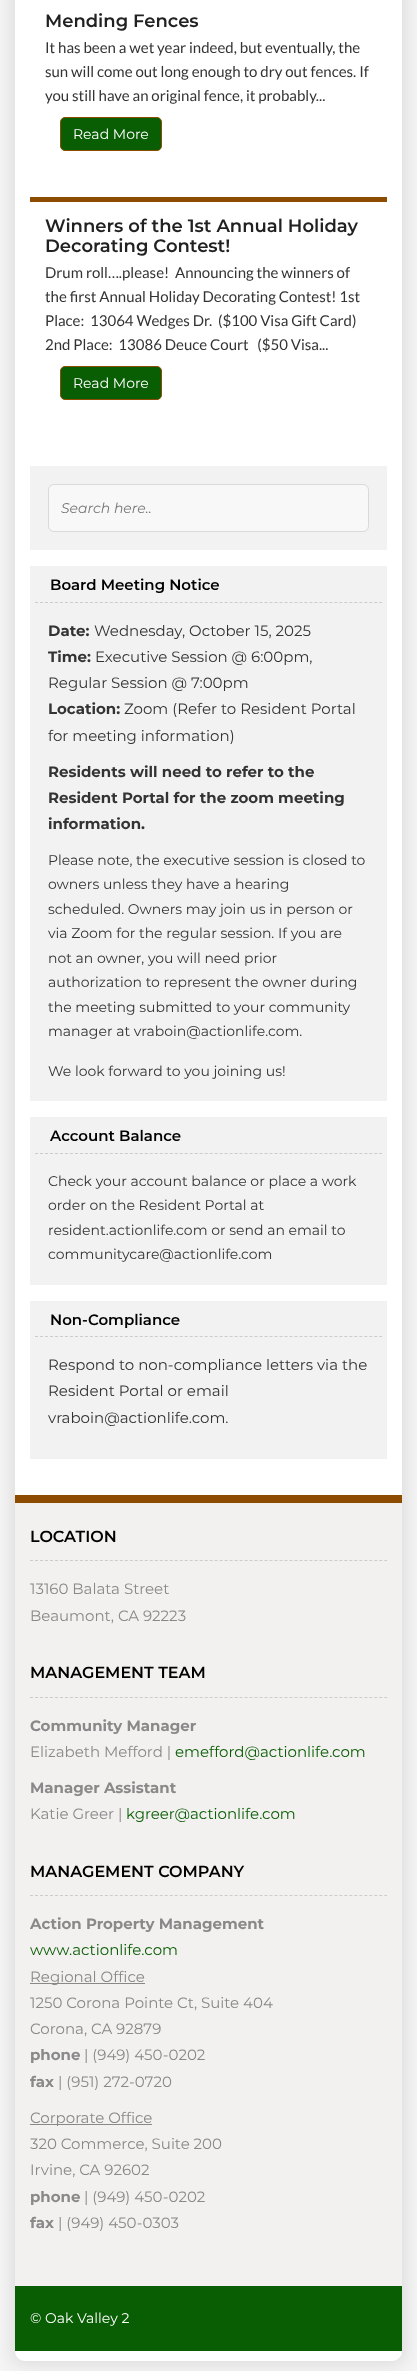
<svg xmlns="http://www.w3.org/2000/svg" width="417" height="2371">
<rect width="100%" height="100%" fill="#f5f5f5"/>
<rect x="10" y="-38" width="397" height="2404" rx="15" fill="#c9c9c980" filter="blur(7.5px)"/>
<path d="M15-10h387v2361c0 5.5-4.5 10-10 10h-367c-5.5 0-10-4.5-10-10z" fill="#fff"/>
<text x="45" y="27" style="font-family:Montserrat;font-size:18px;font-weight:600;fill:#212121">Mending Fences</text>
<text x="45" y="53" style="font-family:Lato;font-size:15px;fill:#333">It has been a wet year indeed, but eventually, the</text>
<text x="45" y="77" style="font-family:Lato;font-size:15px;fill:#333">sun will come out long enough to dry out fences. If</text>
<text x="45" y="101" style="font-family:Lato;font-size:15px;fill:#333">you still have an original fence, it probably...</text>
<rect x="60.5" y="117.5" width="101" height="33" rx="4.5" fill="#095e04" stroke="#8e4c00"/>
<text x="73" y="139" style="font-family:Montserrat;font-size:14px;fill:#fff">Read More</text>
<rect x="30" y="197" width="357" height="5" fill="#8e4c00"/>
<text x="45" y="232" style="font-family:Montserrat;font-size:18px;font-weight:600;fill:#212121">Winners of the 1st Annual Holiday</text>
<text x="45" y="252" style="font-family:Montserrat;font-size:18px;font-weight:600;fill:#212121">Decorating Contest!</text>
<text x="45" y="278" style="font-family:Lato;font-size:15px;fill:#333" xml:space="preserve">Drum roll….please!  Announcing the winners of</text>
<text x="45" y="302" style="font-family:Lato;font-size:15px;fill:#333">the first Annual Holiday Decorating Contest! 1st</text>
<text x="45" y="326" style="font-family:Lato;font-size:15px;fill:#333" xml:space="preserve">Place:  13064 Wedges Dr.  ($100 Visa Gift Card)</text>
<text x="45" y="350" style="font-family:Lato;font-size:15px;fill:#333" xml:space="preserve">2nd Place:  13086 Deuce Court   ($50 Visa...</text>
<rect x="60.5" y="366.5" width="101" height="33" rx="4.5" fill="#095e04" stroke="#8e4c00"/>
<text x="73" y="388" style="font-family:Montserrat;font-size:14px;fill:#fff">Read More</text>
<rect x="30" y="466" width="357" height="84" fill="#f2f2f2"/>
<rect x="48.5" y="484.5" width="320" height="47" rx="5.5" fill="#f8f8f8" stroke="#d9d9d9"/>
<text x="61" y="513" style="font-family:Montserrat;font-size:14px;font-style:italic;fill:#777">Search here..</text>
<rect x="30" y="566" width="357" height="535" fill="#f2f2f2"/>
<path d="M35 602.5h347" fill="none" stroke="#ccc" stroke-dasharray="3 1.99"/>
<text x="50" y="590" style="font-family:Montserrat;font-size:15px;font-weight:600;fill:#000">Board Meeting Notice</text>
<text x="48" y="636" style="font-family:Montserrat;font-size:15px;font-weight:bold;fill:#333">Date:</text>
<text x="94" y="636" style="font-family:Montserrat;font-size:15px;fill:#333">Wednesday, October 15, 2025</text>
<text x="48" y="662" style="font-family:Montserrat;font-size:15px;font-weight:bold;fill:#333">Time:</text>
<text x="95" y="662" style="font-family:Montserrat;font-size:15px;fill:#333">Executive Session @ 6:00pm,</text>
<text x="48" y="688" style="font-family:Montserrat;font-size:15px;fill:#333">Regular Session @ 7:00pm</text>
<text x="48" y="714" style="font-family:Montserrat;font-size:15px;font-weight:bold;fill:#333">Location:</text>
<text x="124" y="714" style="font-family:Montserrat;font-size:15px;fill:#333">Zoom (Refer to Resident Portal</text>
<text x="48" y="741" style="font-family:Montserrat;font-size:15px;fill:#333">for meeting information)</text>
<text x="48" y="777" style="font-family:Montserrat;font-size:15px;font-weight:bold;fill:#333">Residents will need to refer to the</text>
<text x="48" y="803" style="font-family:Montserrat;font-size:15px;font-weight:bold;fill:#333">Resident Portal for the zoom meeting</text>
<text x="48" y="829" style="font-family:Montserrat;font-size:15px;font-weight:bold;fill:#333">information.</text>
<text x="48" y="865" style="font-family:Montserrat;font-size:14px;fill:#333">Please note, the executive session is closed to</text>
<text x="48" y="889" style="font-family:Montserrat;font-size:14px;fill:#333">owners unless they have a hearing</text>
<text x="48" y="914" style="font-family:Montserrat;font-size:14px;fill:#333">scheduled. Owners may join us in person or</text>
<text x="48" y="938" style="font-family:Montserrat;font-size:14px;fill:#333">via Zoom for the regular session. If you are</text>
<text x="48" y="963" style="font-family:Montserrat;font-size:14px;fill:#333">not an owner, you will need prior</text>
<text x="48" y="987" style="font-family:Montserrat;font-size:14px;fill:#333">authorization to represent the owner during</text>
<text x="48" y="1012" style="font-family:Montserrat;font-size:14px;fill:#333">the meeting submitted to your community</text>
<text x="48" y="1036" style="font-family:Montserrat;font-size:14px;fill:#333">manager at vraboin@actionlife.com.</text>
<text x="48" y="1076" style="font-family:Montserrat;font-size:14px;fill:#333">We look forward to you joining us!</text>
<rect x="30" y="1117" width="357" height="168" fill="#f2f2f2"/>
<path d="M35 1153.5h347" fill="none" stroke="#ccc" stroke-dasharray="3 1.99"/>
<text x="50" y="1141" style="font-family:Montserrat;font-size:15px;font-weight:600;fill:#000">Account Balance</text>
<text x="48" y="1186" style="font-family:Montserrat;font-size:14px;fill:#333">Check your account balance or place a work</text>
<text x="48" y="1210" style="font-family:Montserrat;font-size:14px;fill:#333">order on the Resident Portal at</text>
<text x="48" y="1235" style="font-family:Montserrat;font-size:14px;fill:#333">resident.actionlife.com or send an email to</text>
<text x="48" y="1259" style="font-family:Montserrat;font-size:14px;fill:#333">communitycare@actionlife.com</text>
<rect x="30" y="1301" width="357" height="158" fill="#f2f2f2"/>
<path d="M35 1336.5h347" fill="none" stroke="#ccc" stroke-dasharray="3 1.99"/>
<text x="50" y="1325" style="font-family:Montserrat;font-size:15px;font-weight:600;fill:#000">Non-Compliance</text>
<text x="48" y="1370" style="font-family:Montserrat;font-size:15px;fill:#333">Respond to non-compliance letters via the</text>
<text x="48" y="1396" style="font-family:Montserrat;font-size:15px;fill:#333">Resident Portal or email</text>
<text x="48" y="1423" style="font-family:Montserrat;font-size:15px;fill:#333">vraboin@actionlife.com.</text>
<rect x="15" y="1503" width="387" height="783" fill="#f3f0f0"/>
<rect x="15" y="1495" width="387" height="8" fill="#8e4c00"/>
<path d="M30 1560.5h357" fill="none" stroke="#ccc" stroke-dasharray="3 1.99"/>
<text x="30" y="1542" style="font-family:Montserrat;font-size:16px;font-weight:600;fill:#000">LOCATION</text>
<text x="30" y="1594" style="font-family:Montserrat;font-size:15px;fill:#898989">13160 Balata Street</text>
<text x="30" y="1621" style="font-family:Montserrat;font-size:15px;fill:#898989">Beaumont, CA 92223</text>
<path d="M30 1697.5h357" fill="none" stroke="#ccc" stroke-dasharray="3 1.99"/>
<text x="30" y="1678" style="font-family:Montserrat;font-size:16px;font-weight:600;fill:#000">MANAGEMENT TEAM</text>
<text x="30" y="1731" style="font-family:Montserrat;font-size:15px;font-weight:bold;fill:#898989">Community Manager</text>
<text x="30" y="1757" style="font-family:Montserrat;font-size:15px;fill:#898989">Elizabeth Mefford |</text>
<text x="175" y="1757" style="font-family:Montserrat;font-size:15px;fill:#095e04">emefford@actionlife.com</text>
<text x="30" y="1793" style="font-family:Montserrat;font-size:15px;font-weight:bold;fill:#898989">Manager Assistant</text>
<text x="30" y="1819" style="font-family:Montserrat;font-size:15px;fill:#898989">Katie Greer |</text>
<text x="126" y="1819" style="font-family:Montserrat;font-size:15px;fill:#095e04">kgreer@actionlife.com</text>
<path d="M30 1895.5h357" fill="none" stroke="#ccc" stroke-dasharray="3 1.99"/>
<text x="30" y="1877" style="font-family:Montserrat;font-size:16px;font-weight:600;fill:#000">MANAGEMENT COMPANY</text>
<text x="30" y="1929" style="font-family:Montserrat;font-size:15px;font-weight:bold;fill:#898989">Action Property Management</text>
<text x="30" y="1955" style="font-family:Montserrat;font-size:15px;fill:#095e04">www.actionlife.com</text>
<rect x="30" y="1983" width="115" height="1" fill="#898989"/>
<text x="30" y="1982" style="font-family:Montserrat;font-size:15px;fill:#898989">Regional Office</text>
<text x="30" y="2008" style="font-family:Montserrat;font-size:15px;fill:#898989">1250 Corona Pointe Ct, Suite 404</text>
<text x="30" y="2034" style="font-family:Montserrat;font-size:15px;fill:#898989">Corona, CA 92879</text>
<text x="30" y="2060" style="font-family:Montserrat;font-size:15px;font-weight:bold;fill:#898989">phone</text>
<text x="84" y="2060" style="font-family:Montserrat;font-size:15px;fill:#898989">| (949) 450-0202</text>
<text x="30" y="2087" style="font-family:Montserrat;font-size:15px;font-weight:bold;fill:#898989">fax</text>
<text x="58" y="2087" style="font-family:Montserrat;font-size:15px;fill:#898989">| (951) 272-0720</text>
<rect x="30" y="2124" width="122" height="1" fill="#898989"/>
<text x="30" y="2123" style="font-family:Montserrat;font-size:15px;fill:#898989">Corporate Office</text>
<text x="30" y="2149" style="font-family:Montserrat;font-size:15px;fill:#898989">320 Commerce, Suite 200</text>
<text x="30" y="2175" style="font-family:Montserrat;font-size:15px;fill:#898989">Irvine, CA 92602</text>
<text x="30" y="2202" style="font-family:Montserrat;font-size:15px;font-weight:bold;fill:#898989">phone</text>
<text x="84" y="2202" style="font-family:Montserrat;font-size:15px;fill:#898989">| (949) 450-0202</text>
<text x="30" y="2228" style="font-family:Montserrat;font-size:15px;font-weight:bold;fill:#898989">fax</text>
<text x="58" y="2228" style="font-family:Montserrat;font-size:15px;fill:#898989">| (949) 450-0303</text>
<rect x="15" y="2286" width="387" height="65" fill="#095e04"/>
<text x="30" y="2323" style="font-family:Montserrat;font-size:14px;fill:#fff">© Oak Valley 2</text>
</svg>
